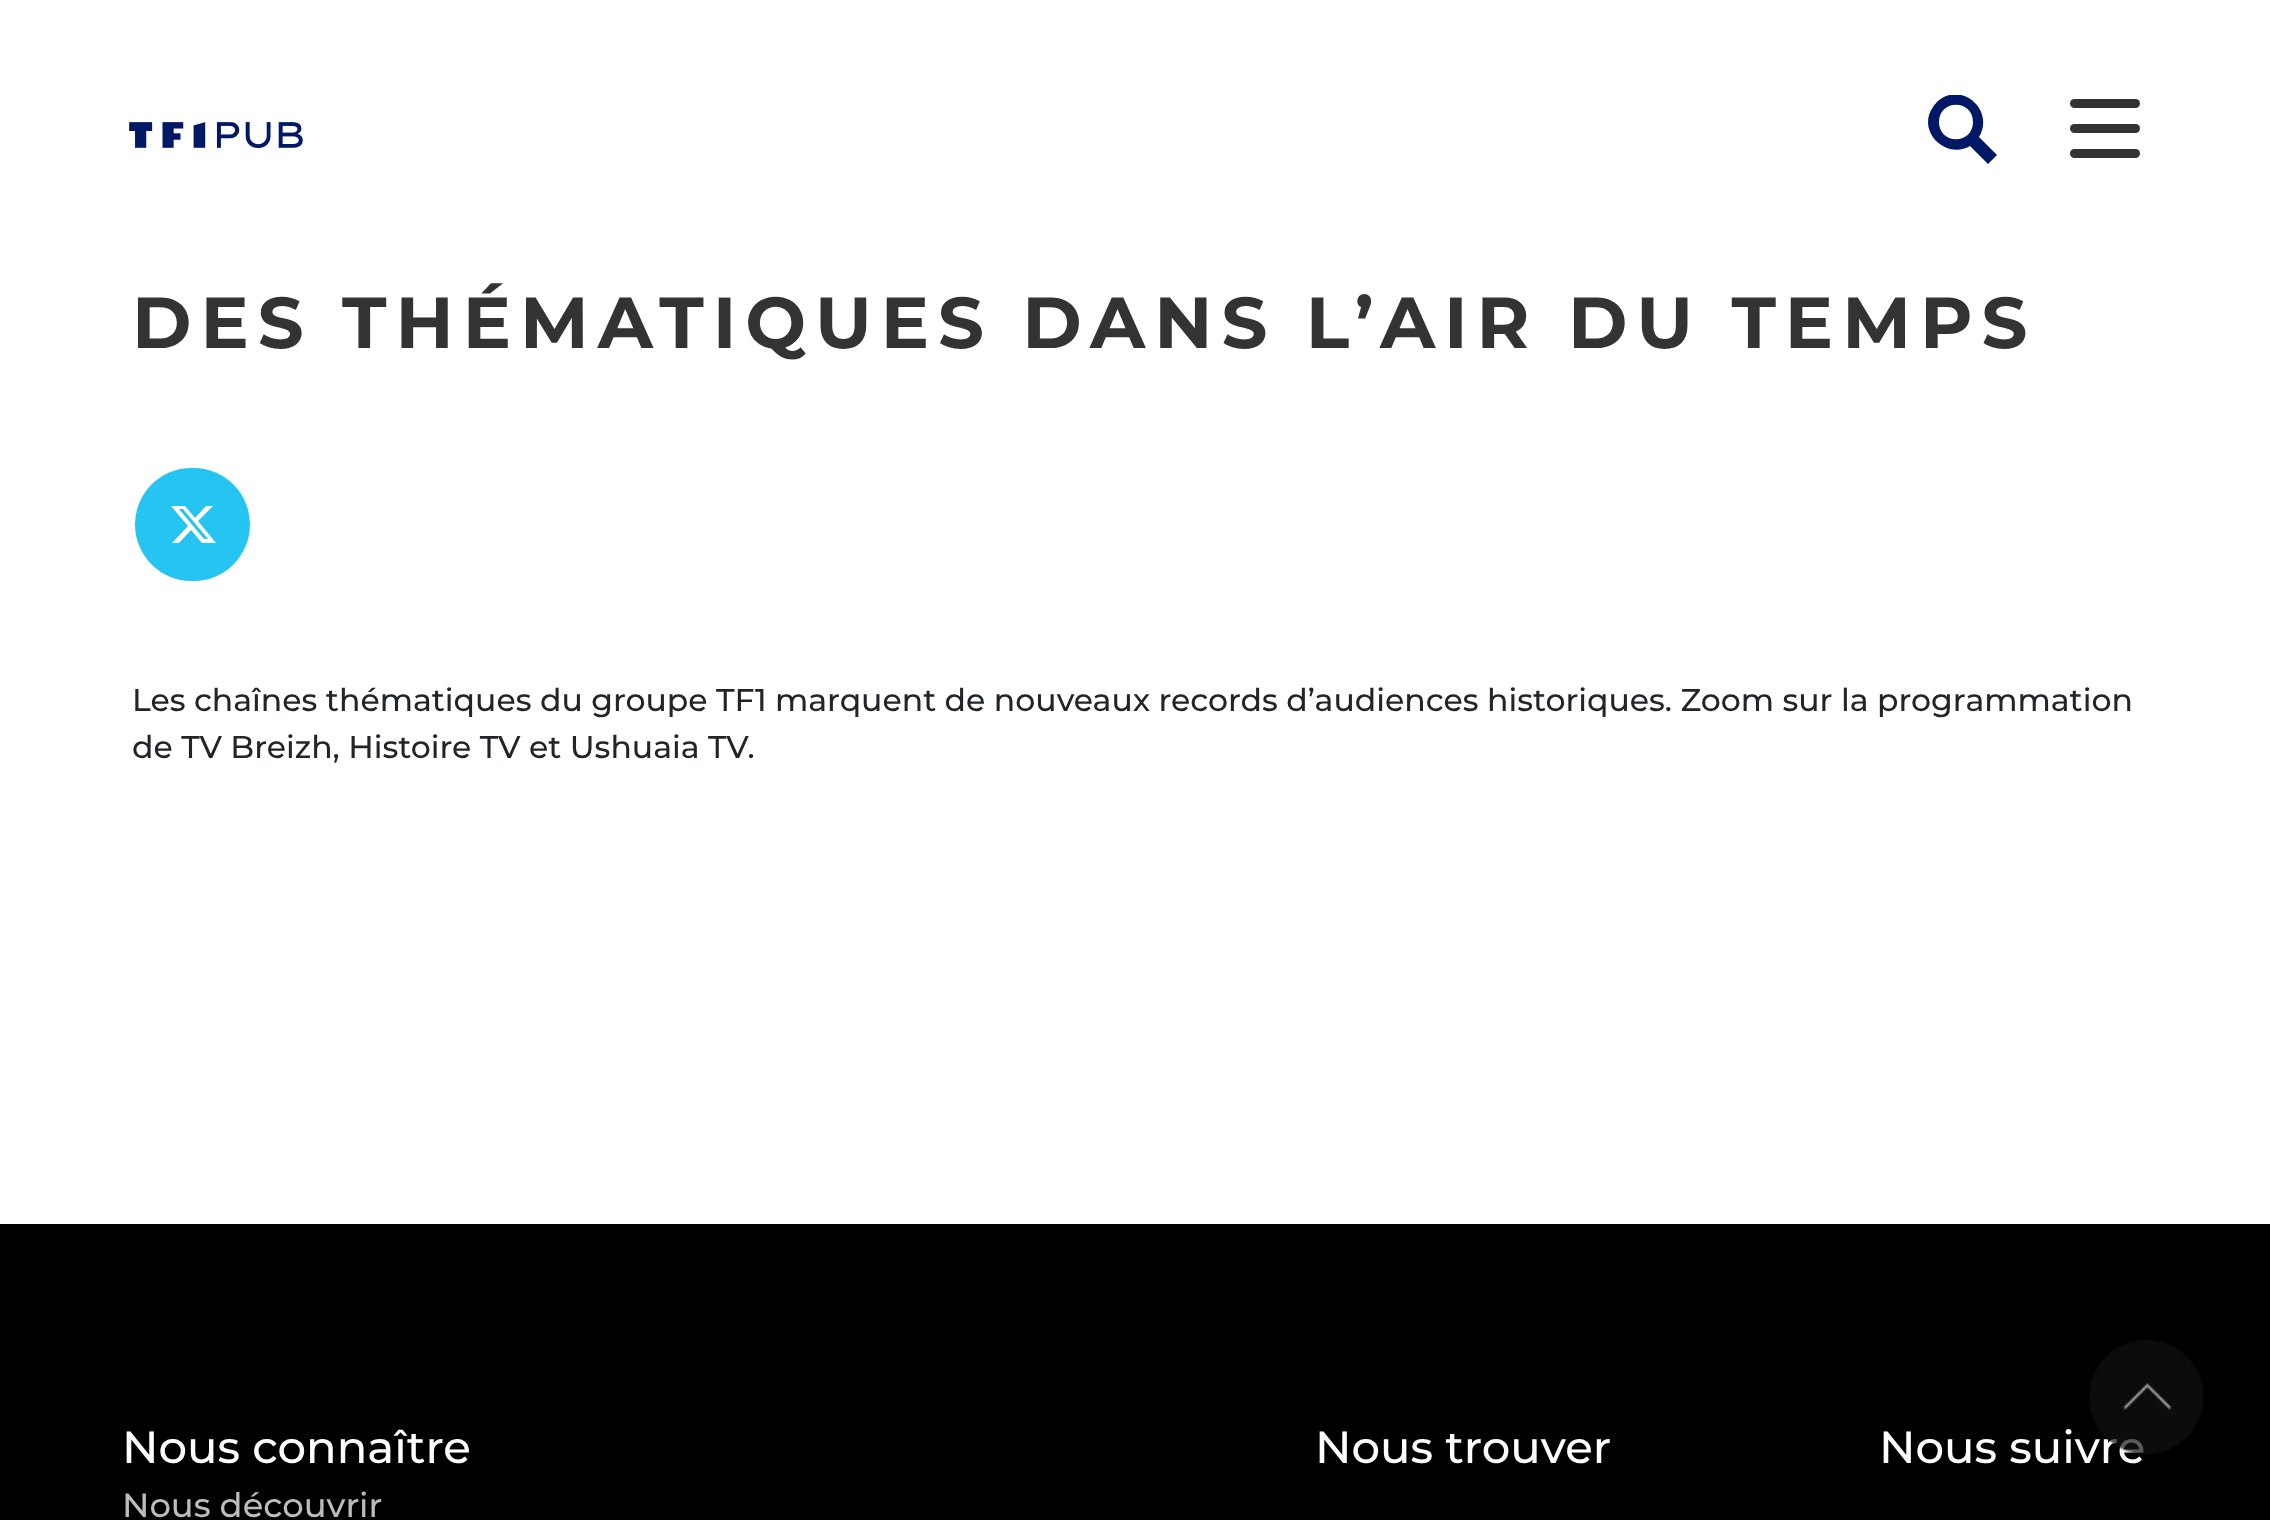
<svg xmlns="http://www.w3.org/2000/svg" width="2270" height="1520">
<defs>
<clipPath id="clip1"><rect x="1928" y="95" width="70" height="69"/></clipPath>
</defs>
<rect width="100%" height="100%" fill="#fff"/>
<image x="129" y="122" width="174" height="26" href="media/1.png"/>
<g clip-path="url(#clip1)">
<path d="M1997 155l-18-18c7-11 5-25-4-34c-6-7-16-10-25-8c-7 1-13 6-17 12c-17 24 13 53 37 39l18 18zm-58-33c0-23 34-23 34 0c0 23-34 23-34 0z" fill="#001866"/>
</g>
<rect x="2070" y="99" width="70" height="9" rx="4.5" fill="#333"/>
<rect x="2070" y="124" width="70" height="9" rx="4.5" fill="#333"/>
<rect x="2070" y="149" width="70" height="9" rx="4.5" fill="#333"/>
<text x="132" y="348" style="font-family:Montserrat;font-size:72px;font-weight:bold;letter-spacing:9px;fill:#333">DES THÉMATIQUES DANS L’AIR DU TEMPS</text>
<rect x="135" y="468" width="115" height="113" rx="56.5" fill="#26c4f1"/>
<path d="M206 506h7l-15 15l18 22h-14l-11-13l-12 13h-7l16-17l-17-20h14l10 12zm-2 33h4l-25-30h-4z" fill="#fff"/>
<text x="132" y="711" style="font-family:Montserrat;font-size:31.5px;font-weight:500;fill:#212529">Les chaînes thématiques du groupe TF1 marquent de nouveaux records d’audiences historiques. Zoom sur la programmation</text>
<text x="132" y="758" style="font-family:Montserrat;font-size:31.5px;font-weight:500;fill:#212529">de TV Breizh, Histoire TV et Ushuaia TV.</text>
<rect y="1224" width="2270" height="296" fill="#000"/>
<text x="122" y="1463" style="font-family:Montserrat;font-size:45px;font-weight:500;fill:#fff">Nous connaître</text>
<text x="122" y="1517" style="font-family:Montserrat;font-size:33.75px;font-weight:500;fill:#bcbcbc">Nous découvrir</text>
<text x="1315" y="1463" style="font-family:Montserrat;font-size:45px;font-weight:500;fill:#fff">Nous trouver</text>
<text x="1879" y="1463" style="font-family:Montserrat;font-size:45px;font-weight:500;fill:#fff">Nous suivre</text>
<image x="2089" y="1339" width="115" height="116" href="media/2.png"/>
</svg>
